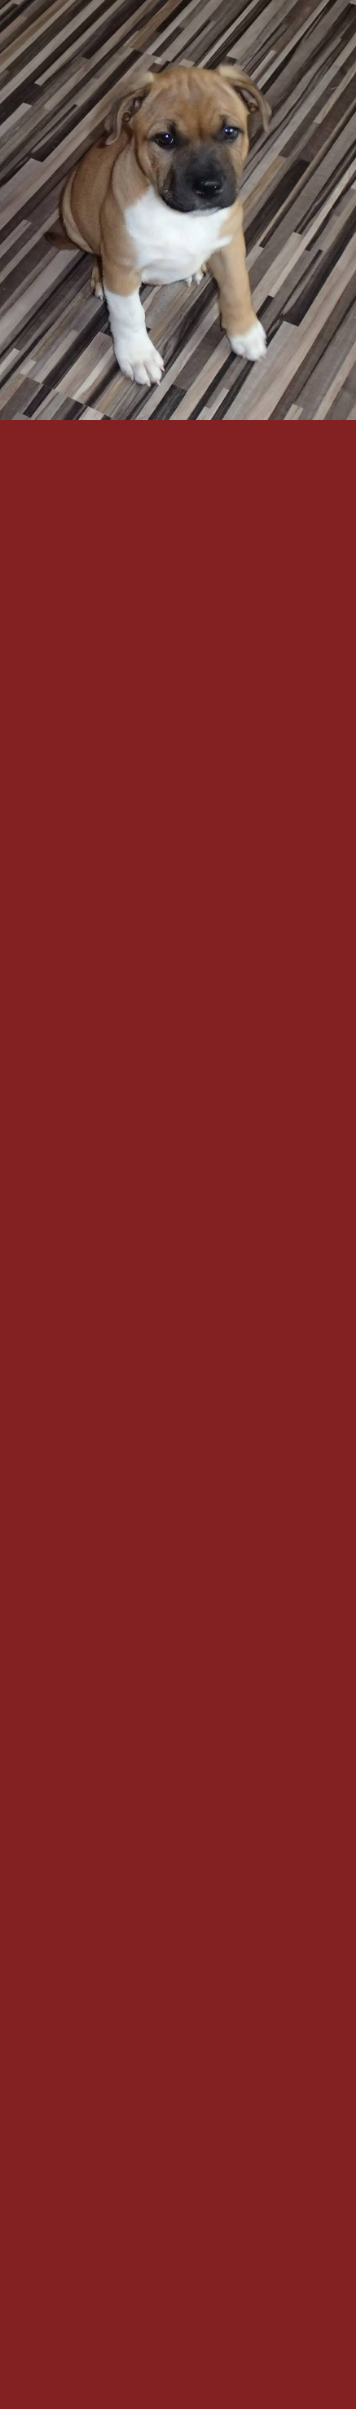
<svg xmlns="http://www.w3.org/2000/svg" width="356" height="2409">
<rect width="100%" height="100%" fill="#832122"/>
<image x="0" y="0" width="356" height="420" href="media/1.png"/>
</svg>
